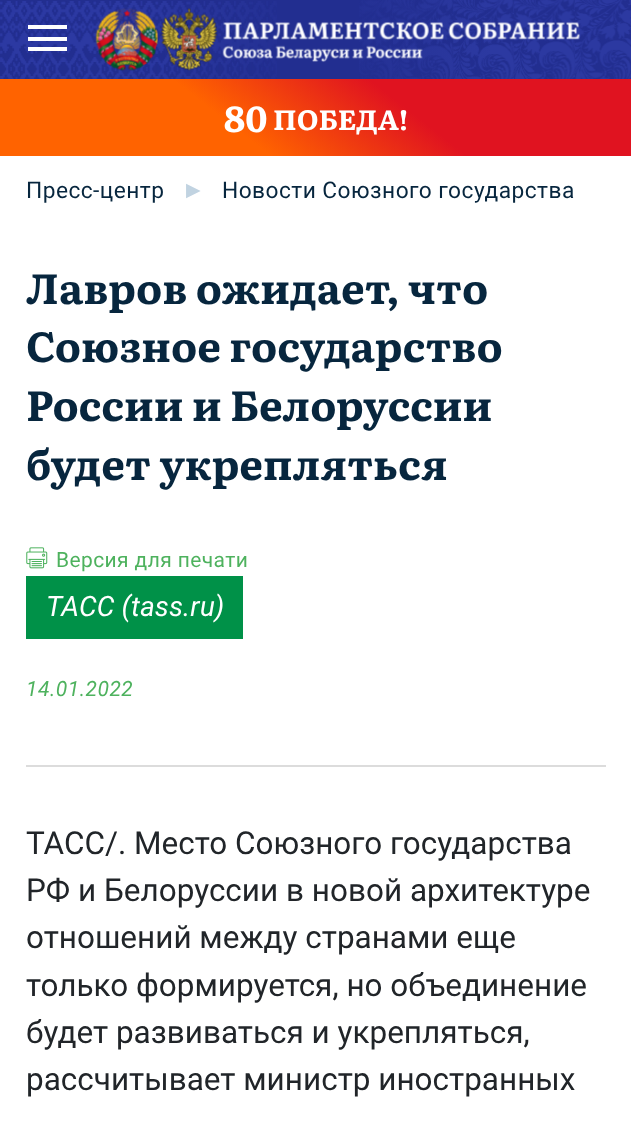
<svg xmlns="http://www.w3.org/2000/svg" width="631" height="1121">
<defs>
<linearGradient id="g1" gradientUnits="userSpaceOnUse" x1="177" y1="294" x2="454" y2="-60"><stop offset="0.37" stop-color="#ff6300"/><stop offset="0.64" stop-color="#e01320"/></linearGradient>
</defs>
<rect width="100%" height="100%" fill="#fff"/>
<rect width="631" height="79" fill="#222e90"/>
<image x="0" y="1" width="277" height="78" href="media/1.png"/>
<image x="359" y="0" width="272" height="79" href="media/2.png"/>
<image x="95" y="8" width="485" height="63" href="media/3.png"/>
<rect x="28" y="25" width="39" height="4" fill="#fff"/>
<rect x="28" y="37" width="39" height="4" fill="#fff"/>
<rect x="28" y="47" width="39" height="4" fill="#fff"/>
<rect y="79" width="631" height="77" fill="url(#g1)"/>
<text x="224" y="132" style="font-family:Literata;font-size:36px;font-weight:bold;fill:#fff">80</text>
<text x="273" y="130" style="font-family:Literata;font-size:28px;font-weight:bold;fill:#fff">ПОБЕДА!</text>
<text x="26" y="198" style="font-family:Roboto;font-size:22.75px;letter-spacing:0.45px;fill:#07263e">Пресс-центр</text>
<text x="186" y="196" style="font-family:DejaVu Sans;font-size:19px;letter-spacing:0.45px;fill:#c1d3e1">▶</text>
<text x="222" y="198" style="font-family:Roboto;font-size:22.75px;letter-spacing:0.45px;fill:#07263e">Новости Союзного государства</text>
<text x="26" y="304" style="font-family:Literata;font-size:42px;font-weight:bold;fill:#07263e">Лавров ожидает, что</text>
<text x="26" y="362" style="font-family:Literata;font-size:42px;font-weight:bold;fill:#07263e">Союзное государство</text>
<text x="26" y="421" style="font-family:Literata;font-size:42px;font-weight:bold;fill:#07263e">России и Белоруссии</text>
<text x="26" y="480" style="font-family:Literata;font-size:42px;font-weight:bold;fill:#07263e">будет укрепляться</text>
<image x="26" y="547" width="22" height="22" href="media/4.png"/>
<text x="56" y="567" style="font-family:Roboto;font-size:21px;letter-spacing:0.4px;fill:#4eb25e">Версия для печати</text>
<rect x="26" y="765" width="580" height="2" fill="#dcdcdc"/>
<rect x="26" y="576" width="217" height="63" fill="#009148"/>
<text x="46" y="616" style="font-family:Roboto;font-size:28px;font-style:italic;fill:#fff">ТАСС (tass.ru)</text>
<text x="26" y="696" style="font-family:Roboto;font-size:21px;font-style:italic;letter-spacing:0.4px;fill:#4eb25e">14.01.2022</text>
<text x="26" y="854" style="font-family:Roboto;font-size:31.5px;fill:#212529">ТАСС/. Место Союзного государства</text>
<text x="26" y="901" style="font-family:Roboto;font-size:31.5px;fill:#212529">РФ и Белоруссии в новой архитектуре</text>
<text x="26" y="948" style="font-family:Roboto;font-size:31.5px;fill:#212529">отношений между странами еще</text>
<text x="26" y="996" style="font-family:Roboto;font-size:31.5px;fill:#212529">только формируется, но объединение</text>
<text x="26" y="1043" style="font-family:Roboto;font-size:31.5px;fill:#212529">будет развиваться и укрепляться,</text>
<text x="26" y="1090" style="font-family:Roboto;font-size:31.5px;fill:#212529">рассчитывает министр иностранных</text>
</svg>
